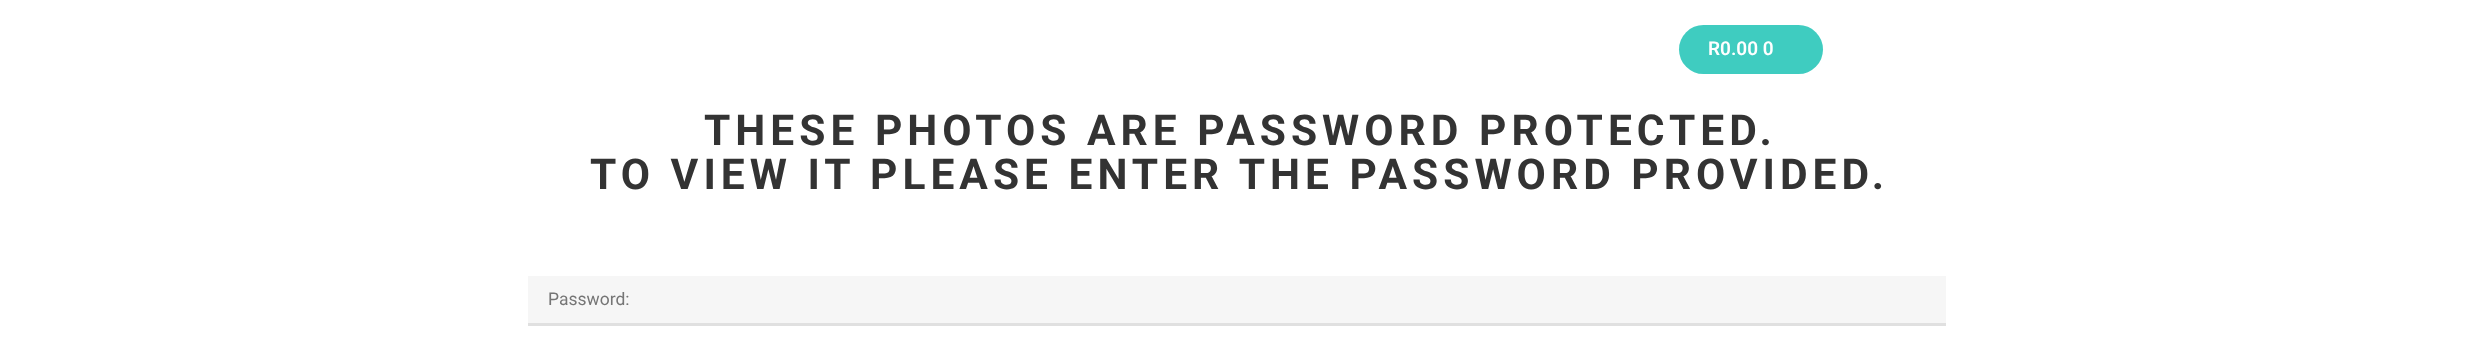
<svg xmlns="http://www.w3.org/2000/svg" width="2480" height="347">
<rect width="100%" height="100%" fill="#fff"/>
<rect x="1679" y="25" width="144" height="49" rx="24.5" fill="#3fccc0"/>
<text x="1708" y="55" style="font-family:Roboto;font-size:19px;font-weight:600;fill:#fff">R0.00 0</text>
<text x="704" y="145" style="font-family:Roboto;font-size:42.5px;font-weight:bold;letter-spacing:5px;fill:#333">THESE PHOTOS ARE PASSWORD PROTECTED.</text>
<text x="590" y="189" style="font-family:Roboto;font-size:42.5px;font-weight:bold;letter-spacing:5px;fill:#333">TO VIEW IT PLEASE ENTER THE PASSWORD PROVIDED.</text>
<rect x="528" y="276" width="1418" height="47" fill="#f6f6f6"/>
<rect x="528" y="323" width="1418" height="3" fill="#e0e0e0"/>
<text x="548" y="305" style="font-family:Roboto;font-size:17.5px;fill:#757575">Password:</text>
</svg>
